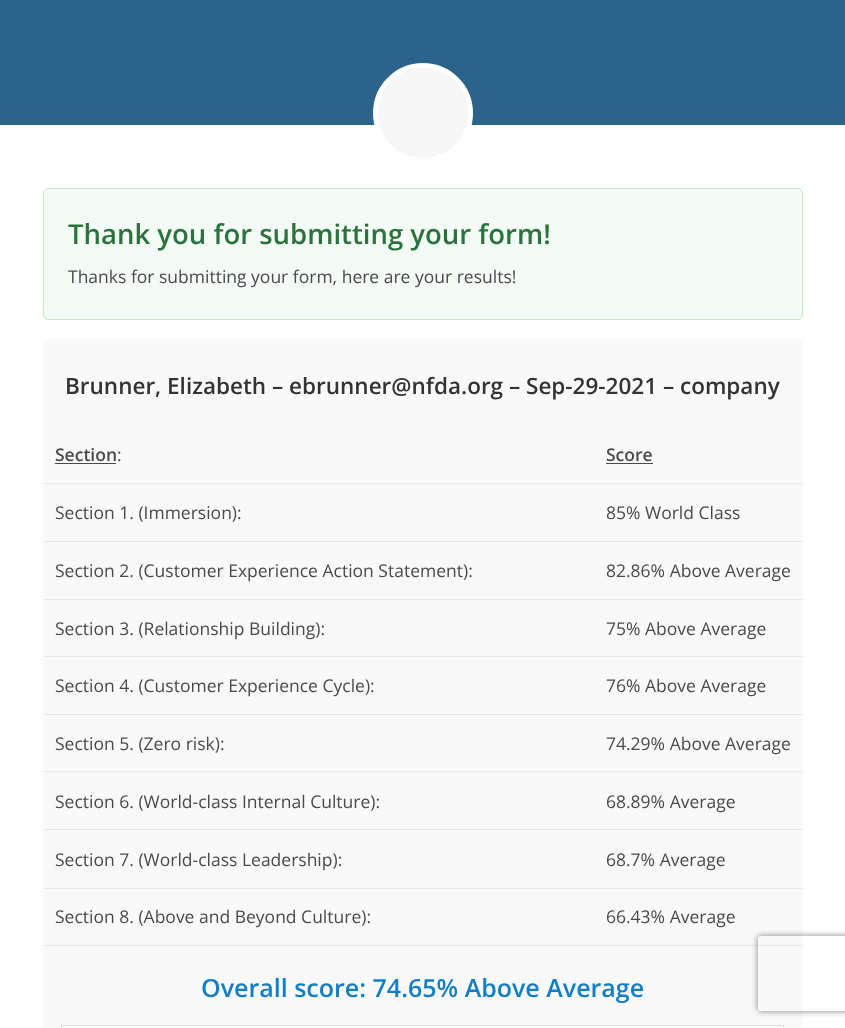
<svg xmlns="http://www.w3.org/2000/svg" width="845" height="1028">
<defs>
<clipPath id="clip1"><path d="M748 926h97v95h-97zm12.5 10h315c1.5 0 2.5 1 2.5 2.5v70c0 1.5-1 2.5-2.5 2.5h-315c-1.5 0-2.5-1-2.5-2.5v-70c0-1.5 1-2.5 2.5-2.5z" clip-rule="evenodd"/></clipPath>
</defs>
<rect width="100%" height="100%" fill="#fff"/>
<rect width="845" height="125" fill="#2c638a"/>
<circle cx="423" cy="113" r="47.5" fill="#f7f7f7" stroke="#fff" stroke-width="5"/>
<rect x="43.5" y="188.5" width="759" height="131" rx="4.5" fill="#f4faf5" stroke="#c3e6cb"/>
<text x="68" y="244" style="font-family:Open Sans;font-size:27.5px;font-weight:600;fill:#2a743b">Thank you for submitting your form!</text>
<text x="68" y="283" style="font-family:Open Sans;font-size:17.5px;fill:#4a4a4a">Thanks for submitting your form, here are your results!</text>
<rect x="43" y="339" width="760" height="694" rx="5" fill="#f9f9f9"/>
<text x="65" y="394" style="font-family:Open Sans;font-size:22.5px;font-weight:600;fill:#333">Brunner, Elizabeth – ebrunner@nfda.org – Sep-29-2021 – company</text>
<text x="55" y="461" style="font-family:Open Sans;font-size:17.5px;font-weight:600;fill:#4a4a4a">Section</text>
<rect x="55" y="463" width="61" height="1" fill="#4a4a4a"/>
<text x="117" y="461" style="font-family:Open Sans;font-size:17.5px;fill:#4a4a4a">:</text>
<rect x="43" y="483" width="760" height="1" fill="#e9e9e9"/>
<text x="606" y="461" style="font-family:Open Sans;font-size:17.5px;font-weight:600;fill:#4a4a4a">Score</text>
<rect x="606" y="463" width="47" height="1" fill="#4a4a4a"/>
<text x="55" y="519" style="font-family:Open Sans;font-size:17.5px;fill:#4a4a4a">Section 1. (Immersion):</text>
<rect x="43" y="541" width="760" height="1" fill="#e9e9e9"/>
<text x="606" y="519" style="font-family:Open Sans;font-size:17.5px;fill:#4a4a4a">85% World Class</text>
<text x="55" y="577" style="font-family:Open Sans;font-size:17.5px;fill:#4a4a4a">Section 2. (Customer Experience Action Statement):</text>
<rect x="43" y="599" width="760" height="1" fill="#e9e9e9"/>
<text x="606" y="577" style="font-family:Open Sans;font-size:17.5px;fill:#4a4a4a">82.86% Above Average</text>
<text x="55" y="635" style="font-family:Open Sans;font-size:17.5px;fill:#4a4a4a">Section 3. (Relationship Building):</text>
<rect x="43" y="656" width="760" height="1" fill="#e9e9e9"/>
<text x="606" y="635" style="font-family:Open Sans;font-size:17.5px;fill:#4a4a4a">75% Above Average</text>
<text x="55" y="692" style="font-family:Open Sans;font-size:17.5px;fill:#4a4a4a">Section 4. (Customer Experience Cycle):</text>
<rect x="43" y="714" width="760" height="1" fill="#e9e9e9"/>
<text x="606" y="692" style="font-family:Open Sans;font-size:17.5px;fill:#4a4a4a">76% Above Average</text>
<text x="55" y="750" style="font-family:Open Sans;font-size:17.5px;fill:#4a4a4a">Section 5. (Zero risk):</text>
<rect x="43" y="771" width="760" height="1" fill="#e9e9e9"/>
<text x="606" y="750" style="font-family:Open Sans;font-size:17.5px;fill:#4a4a4a">74.29% Above Average</text>
<text x="55" y="808" style="font-family:Open Sans;font-size:17.5px;fill:#4a4a4a">Section 6. (World-class Internal Culture):</text>
<rect x="43" y="829" width="760" height="1" fill="#e9e9e9"/>
<text x="606" y="808" style="font-family:Open Sans;font-size:17.5px;fill:#4a4a4a">68.89% Average</text>
<text x="55" y="866" style="font-family:Open Sans;font-size:17.5px;fill:#4a4a4a">Section 7. (World-class Leadership):</text>
<rect x="43" y="888" width="760" height="1" fill="#e9e9e9"/>
<text x="606" y="866" style="font-family:Open Sans;font-size:17.5px;fill:#4a4a4a">68.7% Average</text>
<text x="55" y="923" style="font-family:Open Sans;font-size:17.5px;fill:#4a4a4a">Section 8. (Above and Beyond Culture):</text>
<rect x="43" y="945" width="760" height="1" fill="#e9e9e9"/>
<text x="606" y="923" style="font-family:Open Sans;font-size:17.5px;fill:#4a4a4a">66.43% Average</text>
<text x="201" y="997" style="font-family:Open Sans;font-size:25px;font-weight:600;fill:#107ec8">Overall score: 74.65% Above Average</text>
<rect x="61.5" y="1025.5" width="722" height="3" fill="#fff" stroke="#ddd"/>
<g clip-path="url(#clip1)">
<rect x="758" y="936" width="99" height="75" rx="2.5" fill="#808080" filter="blur(3px)"/>
</g>
</svg>
